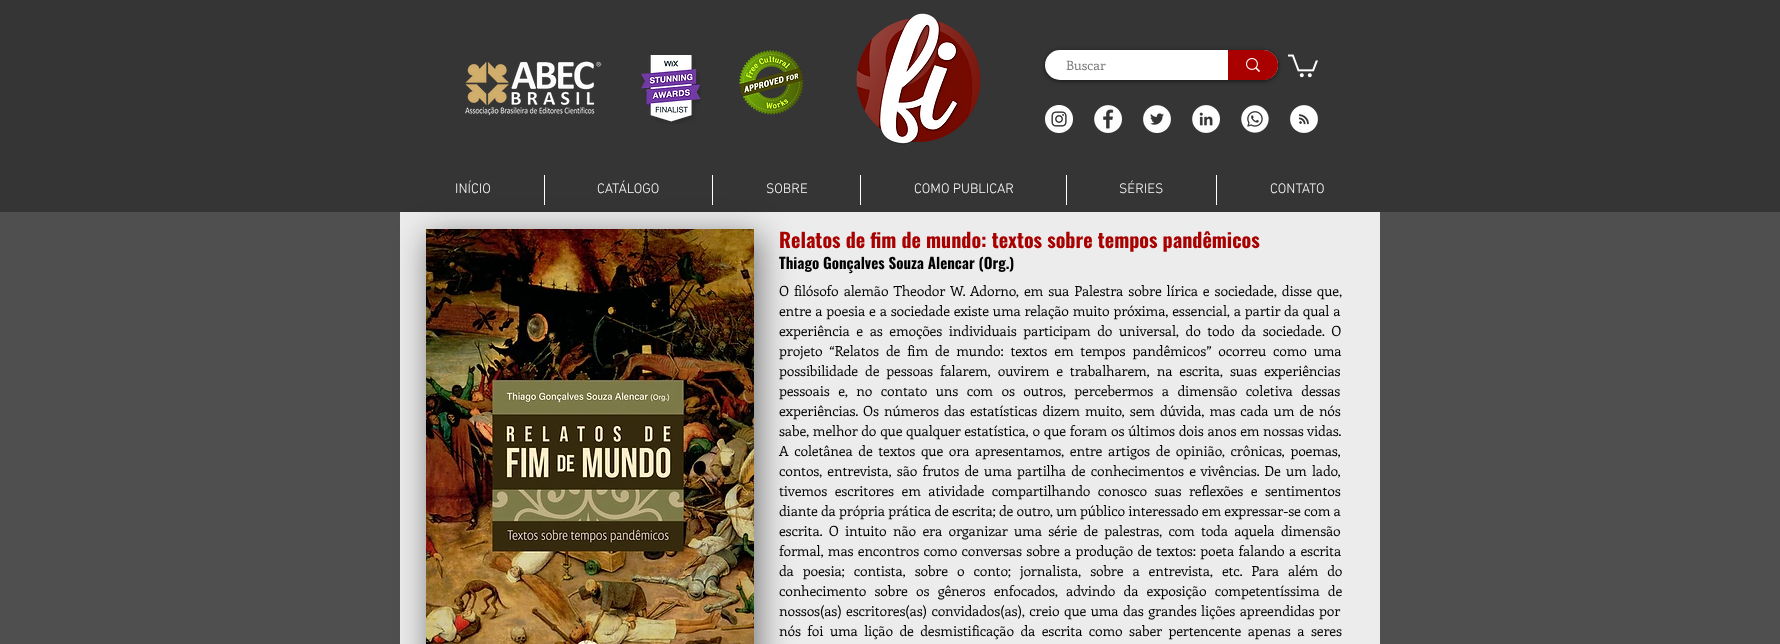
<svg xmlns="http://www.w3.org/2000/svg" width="1780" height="644">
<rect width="100%" height="100%" fill="#4f4f4f"/>
<rect width="1780" height="212" fill="#353535"/>
<image x="465" y="61" width="137" height="54" href="media/1.png"/>
<image x="641" y="55" width="60" height="69" href="media/2.png"/>
<image x="739" y="50" width="65" height="65" href="media/3.png"/>
<image x="856" y="12" width="125" height="133" href="media/4.png"/>
<rect x="1045" y="51" width="233" height="30" rx="15" fill="#00000099" filter="blur(2px)"/>
<rect x="1045" y="50" width="233" height="30" rx="15" fill="#fff"/>
<text x="1066" y="70" style="font-family:Enriqueta;font-size:13px;fill:#787878">Buscar</text>
<path d="M1228 50h35c8.5 0 15 6.5 15 15c0 8.5-6.5 15-15 15h-35z" fill="#a90000"/>
<image x="1246" y="58" width="14" height="14" href="media/5.png"/>
<image x="1288" y="54" width="30" height="24" href="media/6.png"/>
<image x="1045" y="105" width="28" height="28" href="media/7.png"/>
<image x="1094" y="105" width="28" height="28" href="media/8.png"/>
<image x="1143" y="105" width="28" height="28" href="media/9.png"/>
<image x="1192" y="105" width="28" height="28" href="media/10.png"/>
<image x="1241" y="105" width="28" height="28" href="media/11.png"/>
<image x="1290" y="105" width="28" height="28" href="media/12.png"/>
<text x="455" y="193" style="font-family:'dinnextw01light';font-size:14px;font-weight:300;fill:#fff">INÍCIO</text>
<rect x="544" y="175" width="1" height="30" fill="#fff"/>
<text x="597" y="193" style="font-family:'dinnextw01light';font-size:14px;font-weight:300;fill:#fff">CATÁLOGO</text>
<rect x="712" y="175" width="1" height="30" fill="#fff"/>
<text x="766" y="193" style="font-family:'dinnextw01light';font-size:14px;font-weight:300;fill:#fff">SOBRE</text>
<rect x="860" y="175" width="1" height="30" fill="#fff"/>
<text x="914" y="193" style="font-family:'dinnextw01light';font-size:14px;font-weight:300;fill:#fff">COMO PUBLICAR</text>
<rect x="1066" y="175" width="1" height="30" fill="#fff"/>
<text x="1119" y="193" style="font-family:'dinnextw01light';font-size:14px;font-weight:300;fill:#fff">SÉRIES</text>
<rect x="1216" y="175" width="1" height="30" fill="#fff"/>
<text x="1270" y="193" style="font-family:'dinnextw01light';font-size:14px;font-weight:300;fill:#fff">CONTATO</text>
<rect x="400" y="212" width="980" height="432" fill="#ececec"/>
<rect x="429" y="236" width="330" height="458" fill="#00000080" filter="blur(16.5px)"/>
<image x="426" y="229" width="328" height="415" href="media/13.png"/>
<text x="779" y="248" style="font-family:Oswald;font-size:20px;font-weight:bold;fill:#a90000">Relatos de fim de mundo: textos sobre tempos pandêmicos</text>
<text x="779" y="269" style="font-family:Oswald;font-size:15px;font-weight:bold;fill:#000">Thiago Gonçalves Souza Alencar (Org.)</text>
<text x="779" y="296" word-spacing="1.75" style="font-family:Enriqueta;font-size:14px;letter-spacing:-0.15px;fill:#000">O filósofo alemão Theodor W. Adorno, em sua Palestra sobre lírica e sociedade, disse que,</text>
<text x="779" y="316" word-spacing="0.6" style="font-family:Enriqueta;font-size:14px;letter-spacing:-0.15px;fill:#000">entre a poesia e a sociedade existe uma relação muito próxima, essencial, a partir da qual a</text>
<text x="779" y="336" word-spacing="3.4" style="font-family:Enriqueta;font-size:14px;letter-spacing:-0.15px;fill:#000">experiência e as emoções individuais participam do universal, do todo da sociedade. O</text>
<text x="779" y="356" word-spacing="3.75" style="font-family:Enriqueta;font-size:14px;letter-spacing:-0.15px;fill:#000">projeto “Relatos de fim de mundo: textos em tempos pandêmicos” ocorreu como uma</text>
<text x="779" y="376" word-spacing="3.75" style="font-family:Enriqueta;font-size:14px;letter-spacing:-0.15px;fill:#000">possibilidade de pessoas falarem, ouvirem e trabalharem, na escrita, suas experiências</text>
<text x="779" y="396" word-spacing="5.25" style="font-family:Enriqueta;font-size:14px;letter-spacing:-0.15px;fill:#000">pessoais e, no contato uns com os outros, percebermos a dimensão coletiva dessas</text>
<text x="779" y="416" word-spacing="1.9" style="font-family:Enriqueta;font-size:14px;letter-spacing:-0.15px;fill:#000">experiências. Os números das estatísticas dizem muito, sem dúvida, mas cada um de nós</text>
<text x="779" y="436" word-spacing="0.5" style="font-family:Enriqueta;font-size:14px;letter-spacing:-0.15px;fill:#000">sabe, melhor do que qualquer estatística, o que foram os últimos dois anos em nossas vidas.</text>
<text x="779" y="456" word-spacing="2.5" style="font-family:Enriqueta;font-size:14px;letter-spacing:-0.15px;fill:#000">A coletânea de textos que ora apresentamos, entre artigos de opinião, crônicas, poemas,</text>
<text x="779" y="476" word-spacing="2" style="font-family:Enriqueta;font-size:14px;letter-spacing:-0.15px;fill:#000">contos, entrevista, são frutos de uma partilha de conhecimentos e vivências. De um lado,</text>
<text x="779" y="496" word-spacing="4.25" style="font-family:Enriqueta;font-size:14px;letter-spacing:-0.15px;fill:#000">tivemos escritores em atividade compartilhando conosco suas reflexões e sentimentos</text>
<text x="779" y="516" style="font-family:Enriqueta;font-size:14px;letter-spacing:-0.15px;fill:#000">diante da própria prática de escrita; de outro, um público interessado em expressar-se com a</text>
<text x="779" y="536" word-spacing="3.1" style="font-family:Enriqueta;font-size:14px;letter-spacing:-0.15px;fill:#000">escrita. O intuito não era organizar uma série de palestras, com toda aquela dimensão</text>
<text x="779" y="556" word-spacing="1.1" style="font-family:Enriqueta;font-size:14px;letter-spacing:-0.15px;fill:#000">formal, mas encontros como conversas sobre a produção de textos: poeta falando a escrita</text>
<text x="779" y="576" word-spacing="5.75" style="font-family:Enriqueta;font-size:14px;letter-spacing:-0.15px;fill:#000">da poesia; contista, sobre o conto; jornalista, sobre a entrevista, etc. Para além do</text>
<text x="779" y="596" word-spacing="5" style="font-family:Enriqueta;font-size:14px;letter-spacing:-0.15px;fill:#000">conhecimento sobre os gêneros enfocados, advindo da exposição competentíssima de</text>
<text x="779" y="616" word-spacing="1.25" style="font-family:Enriqueta;font-size:14px;letter-spacing:-0.15px;fill:#000">nossos(as) escritores(as) convidados(as), creio que uma das grandes lições apreendidas por</text>
<text x="779" y="636" word-spacing="3.25" style="font-family:Enriqueta;font-size:14px;letter-spacing:-0.15px;fill:#000">nós foi uma lição de desmistificação da escrita como saber pertencente apenas a seres</text>
</svg>
